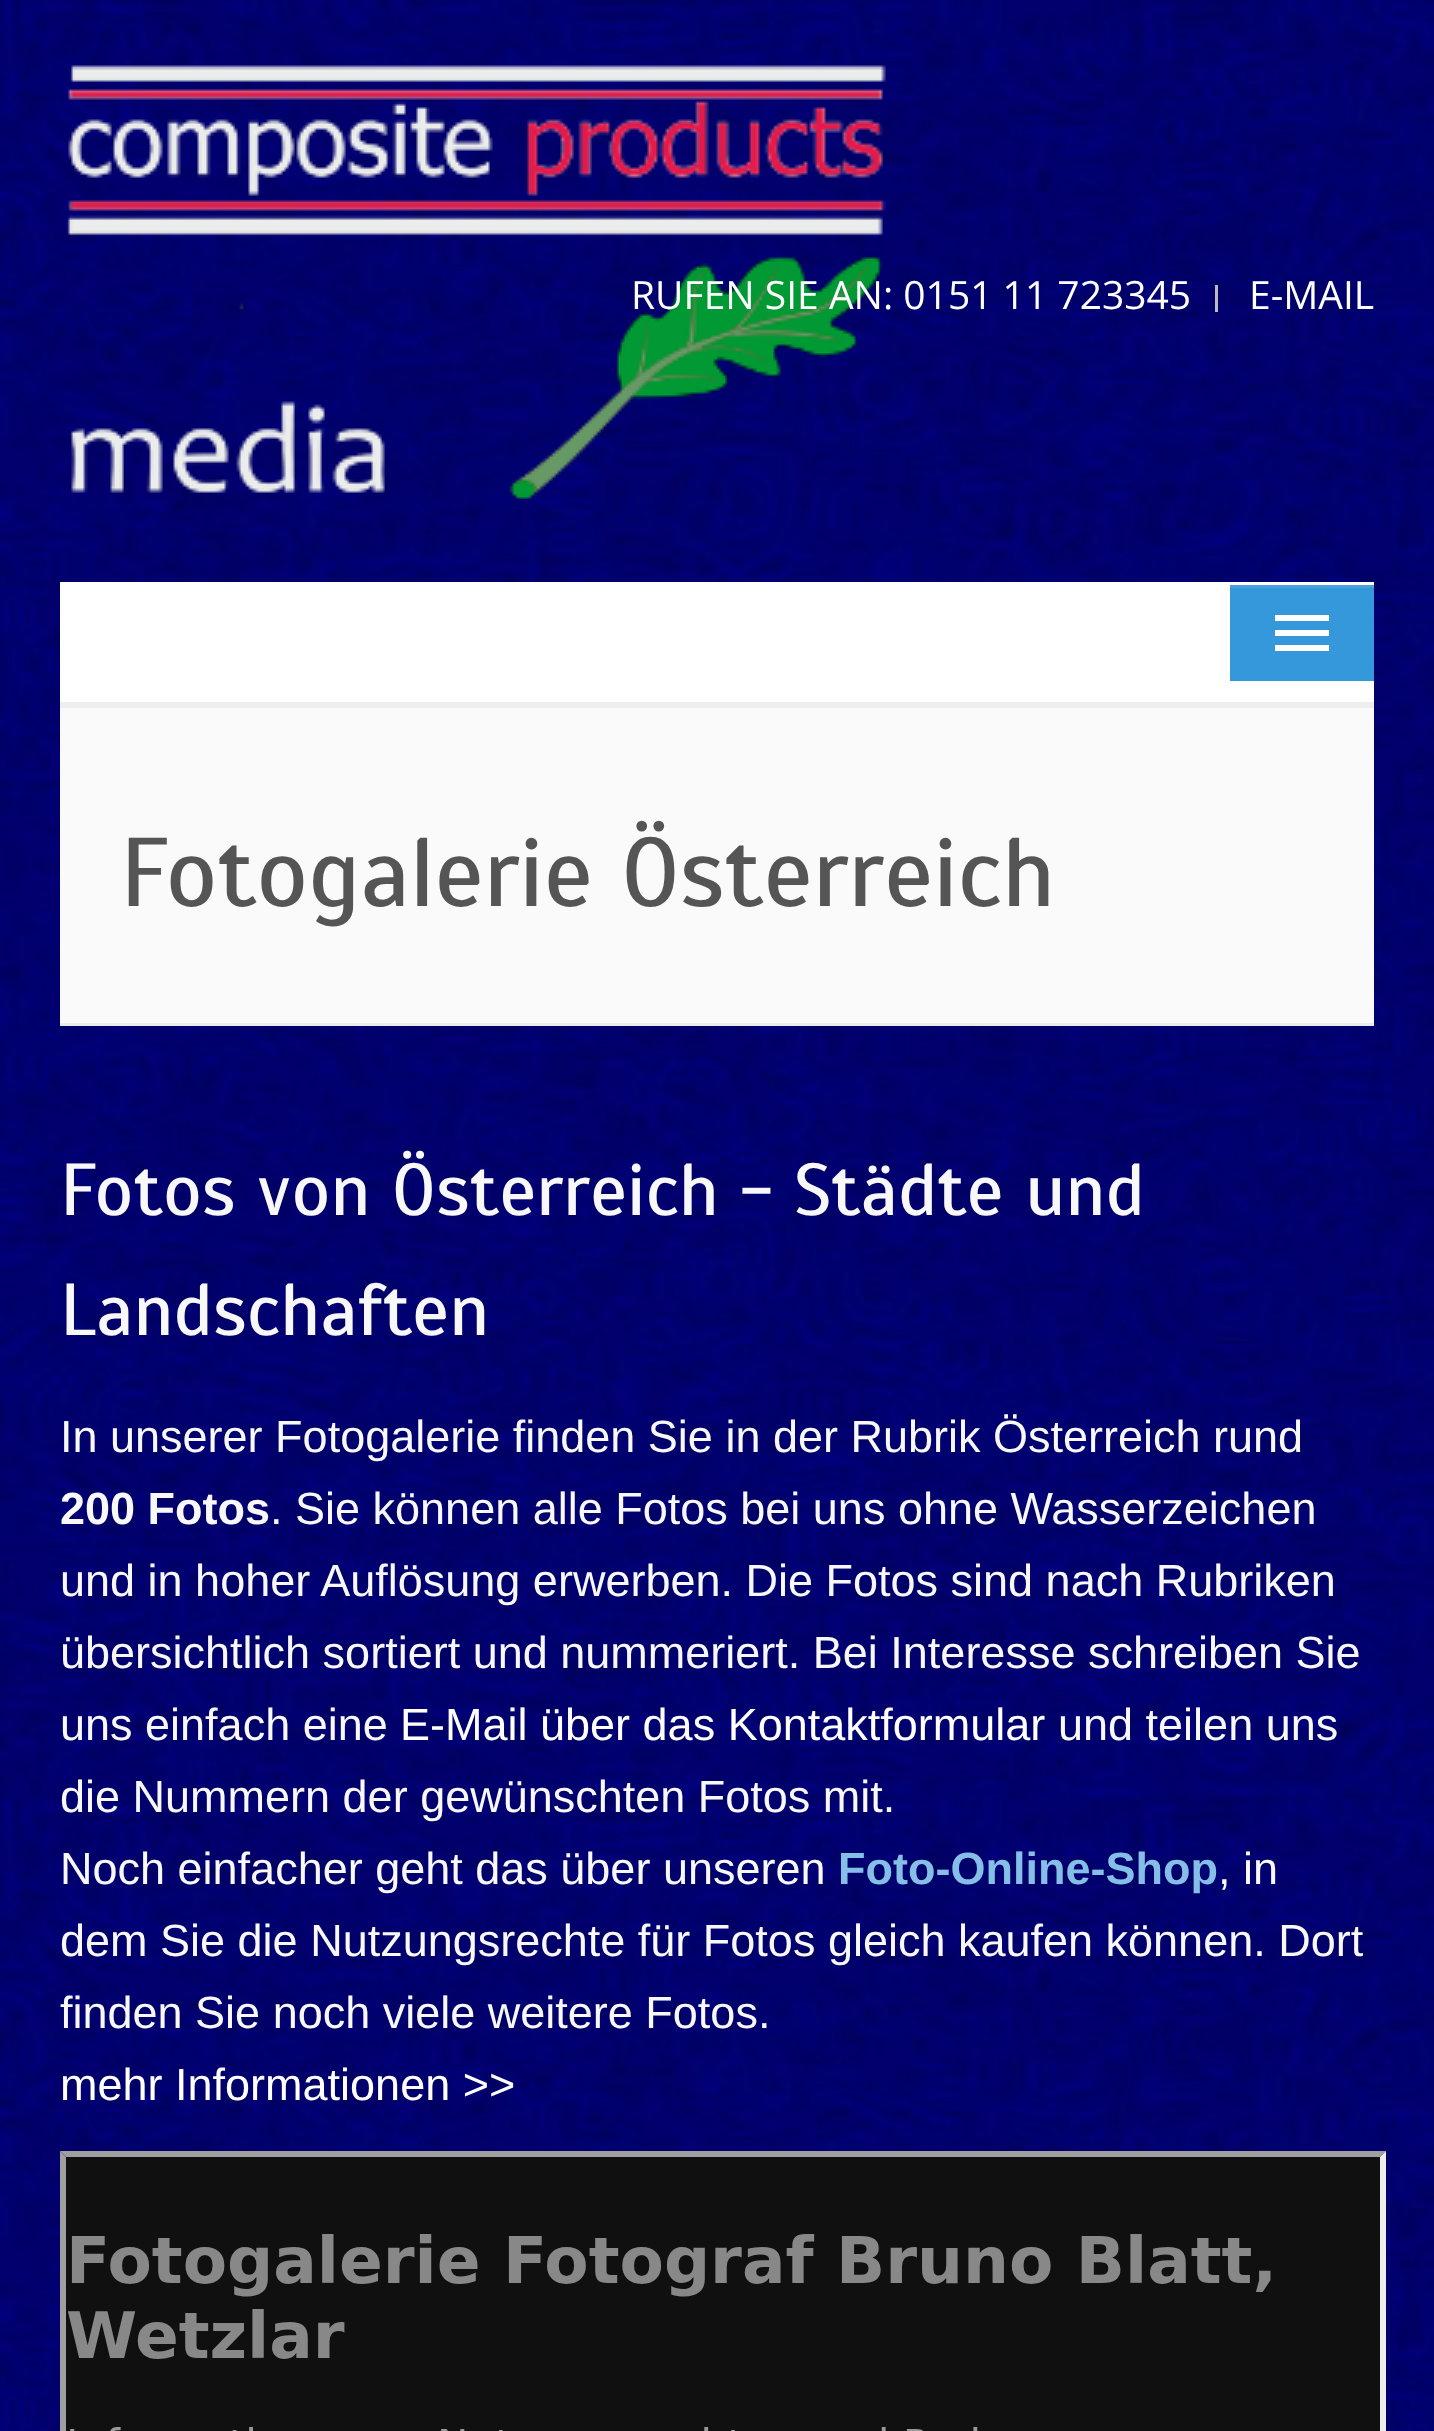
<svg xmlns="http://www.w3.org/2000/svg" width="1434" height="2431">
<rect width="100%" height="100%" fill="#fff"/>
<image x="0" y="0" width="1434" height="2431" href="media/1.png"/>
<rect x="60" y="702" width="1314" height="6" fill="#eee"/>
<image x="66" y="65" width="820" height="436" href="media/2.png"/>
<rect x="60" y="582" width="1314" height="120" fill="#fff"/>
<rect x="1230" y="588" width="144" height="93" fill="#3498db"/>
<rect x="1230" y="585" width="144" height="3" fill="#48a2df"/>
<rect x="1275" y="615" width="54" height="6" fill="#fff"/>
<rect x="1275" y="630" width="54" height="6" fill="#fff"/>
<rect x="1275" y="645" width="54" height="6" fill="#fff"/>
<text x="631" y="309" style="font-family:Open Sans;font-size:39px;fill:#fff">RUFEN SIE AN: 0151 11 723345</text>
<rect x="1215" y="285" width="3" height="27" fill="#bbb"/>
<text x="1249" y="309" style="font-family:Open Sans;font-size:39px;fill:#fff">E-MAIL</text>
<rect x="60" y="708" width="1314" height="315" fill="#fafafa"/>
<rect x="60" y="1023" width="1314" height="3" fill="#ececec"/>
<text x="120" y="906" style="font-family:Scada;font-size:97.5px;fill:#555">Fotogalerie Österreich</text>
<text x="60" y="1215" style="font-family:Scada;font-size:73.5px;fill:#f8f8f8">Fotos von Österreich - Städte und</text>
<text x="60" y="1335" style="font-family:Scada;font-size:73.5px;fill:#f8f8f8">Landschaften</text>
<text x="60" y="1452" style="font-family:Liberation Sans;font-size:45px;fill:#f8f8f8">In unserer Fotogalerie finden Sie in der Rubrik Österreich rund</text>
<text x="60" y="1524" style="font-family:Liberation Sans;font-size:45px;font-weight:bold;fill:#f8f8f8">200 Fotos</text>
<text x="270" y="1524" style="font-family:Liberation Sans;font-size:45px;fill:#f8f8f8">. Sie können alle Fotos bei uns ohne Wasserzeichen</text>
<text x="60" y="1596" style="font-family:Liberation Sans;font-size:45px;fill:#f8f8f8">und in hoher Auflösung erwerben. Die Fotos sind nach Rubriken</text>
<text x="60" y="1668" style="font-family:Liberation Sans;font-size:45px;fill:#f8f8f8">übersichtlich sortiert und nummeriert. Bei Interesse schreiben Sie</text>
<text x="60" y="1740" style="font-family:Liberation Sans;font-size:45px;fill:#f8f8f8">uns einfach eine</text>
<text x="400" y="1740" style="font-family:Liberation Sans;font-size:45px;fill:#fff">E-Mail über das Kontaktformular</text>
<text x="1058" y="1740" style="font-family:Liberation Sans;font-size:45px;fill:#f8f8f8">und teilen uns</text>
<text x="60" y="1812" style="font-family:Liberation Sans;font-size:45px;fill:#f8f8f8">die Nummern der gewünschten Fotos mit.</text>
<text x="60" y="1884" style="font-family:Liberation Sans;font-size:45px;fill:#f8f8f8">Noch einfacher geht das über unseren</text>
<text x="838" y="1884" style="font-family:Liberation Sans;font-size:45px;font-weight:bold;fill:#85bfe8">Foto-Online-Shop</text>
<text x="1218" y="1884" style="font-family:Liberation Sans;font-size:45px;fill:#f8f8f8">, in</text>
<text x="60" y="1956" style="font-family:Liberation Sans;font-size:45px;fill:#f8f8f8">dem Sie die Nutzungsrechte für Fotos gleich kaufen können. Dort</text>
<text x="60" y="2028" style="font-family:Liberation Sans;font-size:45px;fill:#f8f8f8">finden Sie noch viele weitere Fotos.</text>
<text x="60" y="2100" style="font-family:Liberation Sans;font-size:45px;fill:#fff">mehr Informationen &gt;&gt;</text>
<path d="M60 2151h1326l-6 6h-1314z" fill="#9f9f9f"/>
<path d="M1386 2151v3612l-6-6v-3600z" fill="#eee"/>
<path d="M60 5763v-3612l6 6v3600z" fill="#9f9f9f"/>
<image x="66" y="2157" width="1314" height="274" href="media/3.png"/>
</svg>
